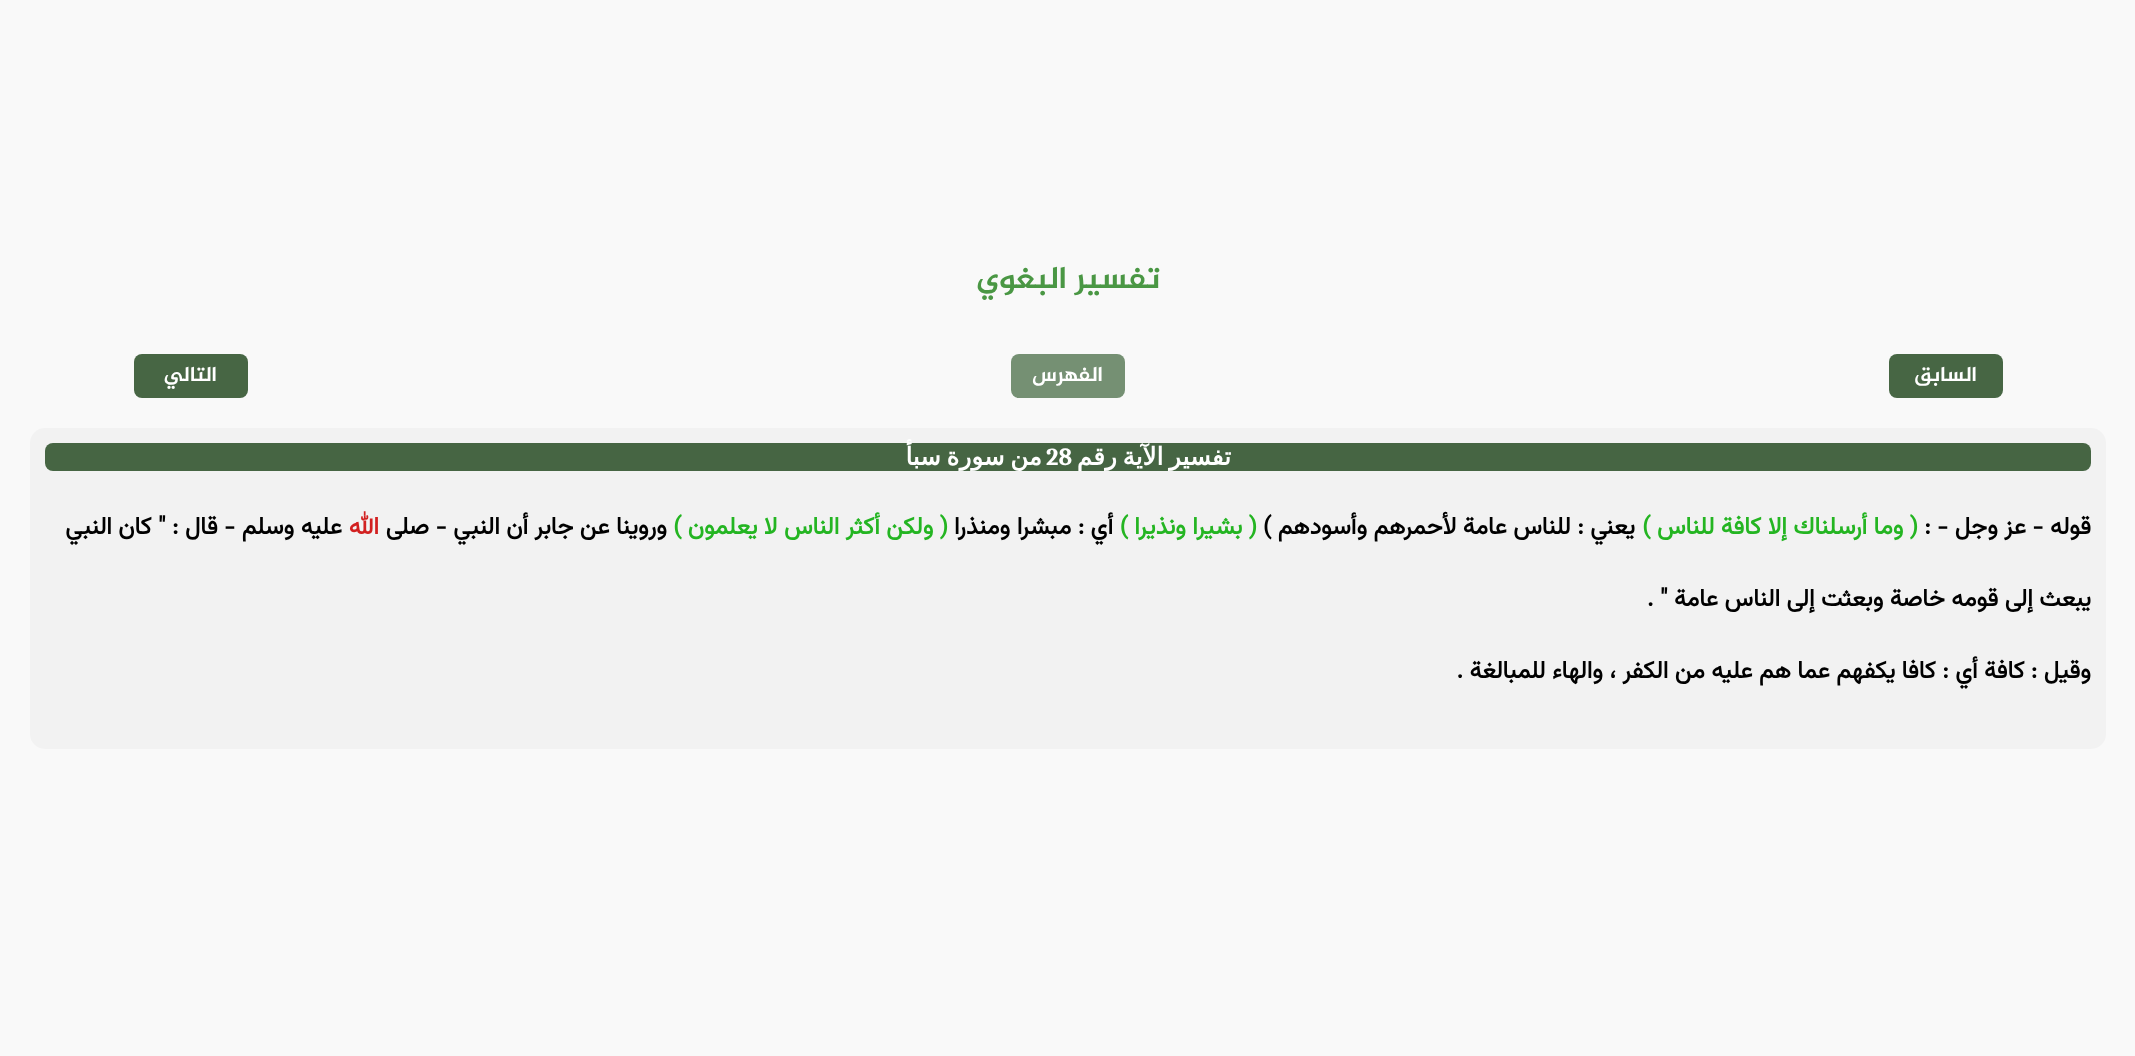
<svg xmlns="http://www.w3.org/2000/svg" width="2135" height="1056">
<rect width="100%" height="100%" fill="#f9f9f9"/>
<text x="1160" y="288" style="font-family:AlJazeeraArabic;font-size:31.5px;font-weight:bold;direction:rtl;fill:#4a9744">تفسير البغوي</text>
<rect x="1889" y="354" width="114" height="44" rx="8" fill="#476644"/>
<text x="1977" y="381" style="font-family:AlJazeeraArabic;font-size:21px;font-weight:bold;direction:rtl;fill:#fff">السابق</text>
<rect x="1011" y="354" width="114" height="44" rx="8" fill="#759073"/>
<text x="1103" y="381" style="font-family:AlJazeeraArabic;font-size:21px;font-weight:bold;direction:rtl;fill:#fff">الفهرس</text>
<rect x="134" y="354" width="114" height="44" rx="8" fill="#476644"/>
<text x="217" y="381" style="font-family:AlJazeeraArabic;font-size:21px;font-weight:bold;direction:rtl;fill:#fff">التالي</text>
<rect x="30" y="428" width="2076" height="321" rx="15" fill="#f2f2f2"/>
<rect x="45" y="443" width="2046" height="28" rx="8" fill="#466543"/>
<text x="1231" y="465" word-spacing="-2" style="font-family:DejaVu Sans;font-size:24.5px;font-weight:bold;direction:rtl;fill:#fff">تفسير الآية رقم</text>
<text x="1046" y="465" style="font-family:Caladea;font-size:24.5px;font-weight:bold;fill:#fff">28</text>
<text x="1042" y="465" word-spacing="-2" style="font-family:DejaVu Sans;font-size:24.5px;font-weight:bold;direction:rtl;fill:#fff">من سورة سبأ</text>
<text x="2091" y="534" style="font-family:Vazirmatn;font-size:24px;font-weight:bold;direction:rtl;fill:#000">قوله - عز وجل - :</text>
<text x="1918" y="534" style="font-family:Vazirmatn;font-size:24px;font-weight:bold;direction:rtl;fill:#24b522">( وما أرسلناك إلا كافة للناس )</text>
<text x="1635" y="534" style="font-family:Vazirmatn;font-size:24px;font-weight:bold;direction:rtl;fill:#000">يعني : للناس عامة لأحمرهم وأسودهم )</text>
<text x="1257" y="534" style="font-family:Vazirmatn;font-size:24px;font-weight:bold;direction:rtl;fill:#24b522">( بشيرا ونذيرا )</text>
<text x="1113" y="534" style="font-family:Vazirmatn;font-size:24px;font-weight:bold;direction:rtl;fill:#000">أي : مبشرا ومنذرا</text>
<text x="948" y="534" style="font-family:Vazirmatn;font-size:24px;font-weight:bold;direction:rtl;fill:#24b522">( ولكن أكثر الناس لا يعلمون )</text>
<text x="667" y="534" style="font-family:Vazirmatn;font-size:24px;font-weight:bold;direction:rtl;fill:#000">وروينا عن جابر أن النبي - صلى</text>
<text x="379" y="534" style="font-family:Vazirmatn;font-size:24px;font-weight:bold;direction:rtl;fill:#d22020">الله</text>
<text x="342" y="534" style="font-family:Vazirmatn;font-size:24px;font-weight:bold;direction:rtl;fill:#000">عليه وسلم - قال : " كان النبي</text>
<text x="2091" y="606" style="font-family:Vazirmatn;font-size:24px;font-weight:bold;direction:rtl;fill:#000">يبعث إلى قومه خاصة وبعثت إلى الناس عامة " .</text>
<text x="2091" y="678" style="font-family:Vazirmatn;font-size:24px;font-weight:bold;direction:rtl;fill:#000">وقيل : كافة أي : كافا يكفهم عما هم عليه من الكفر ، والهاء للمبالغة .</text>
</svg>
